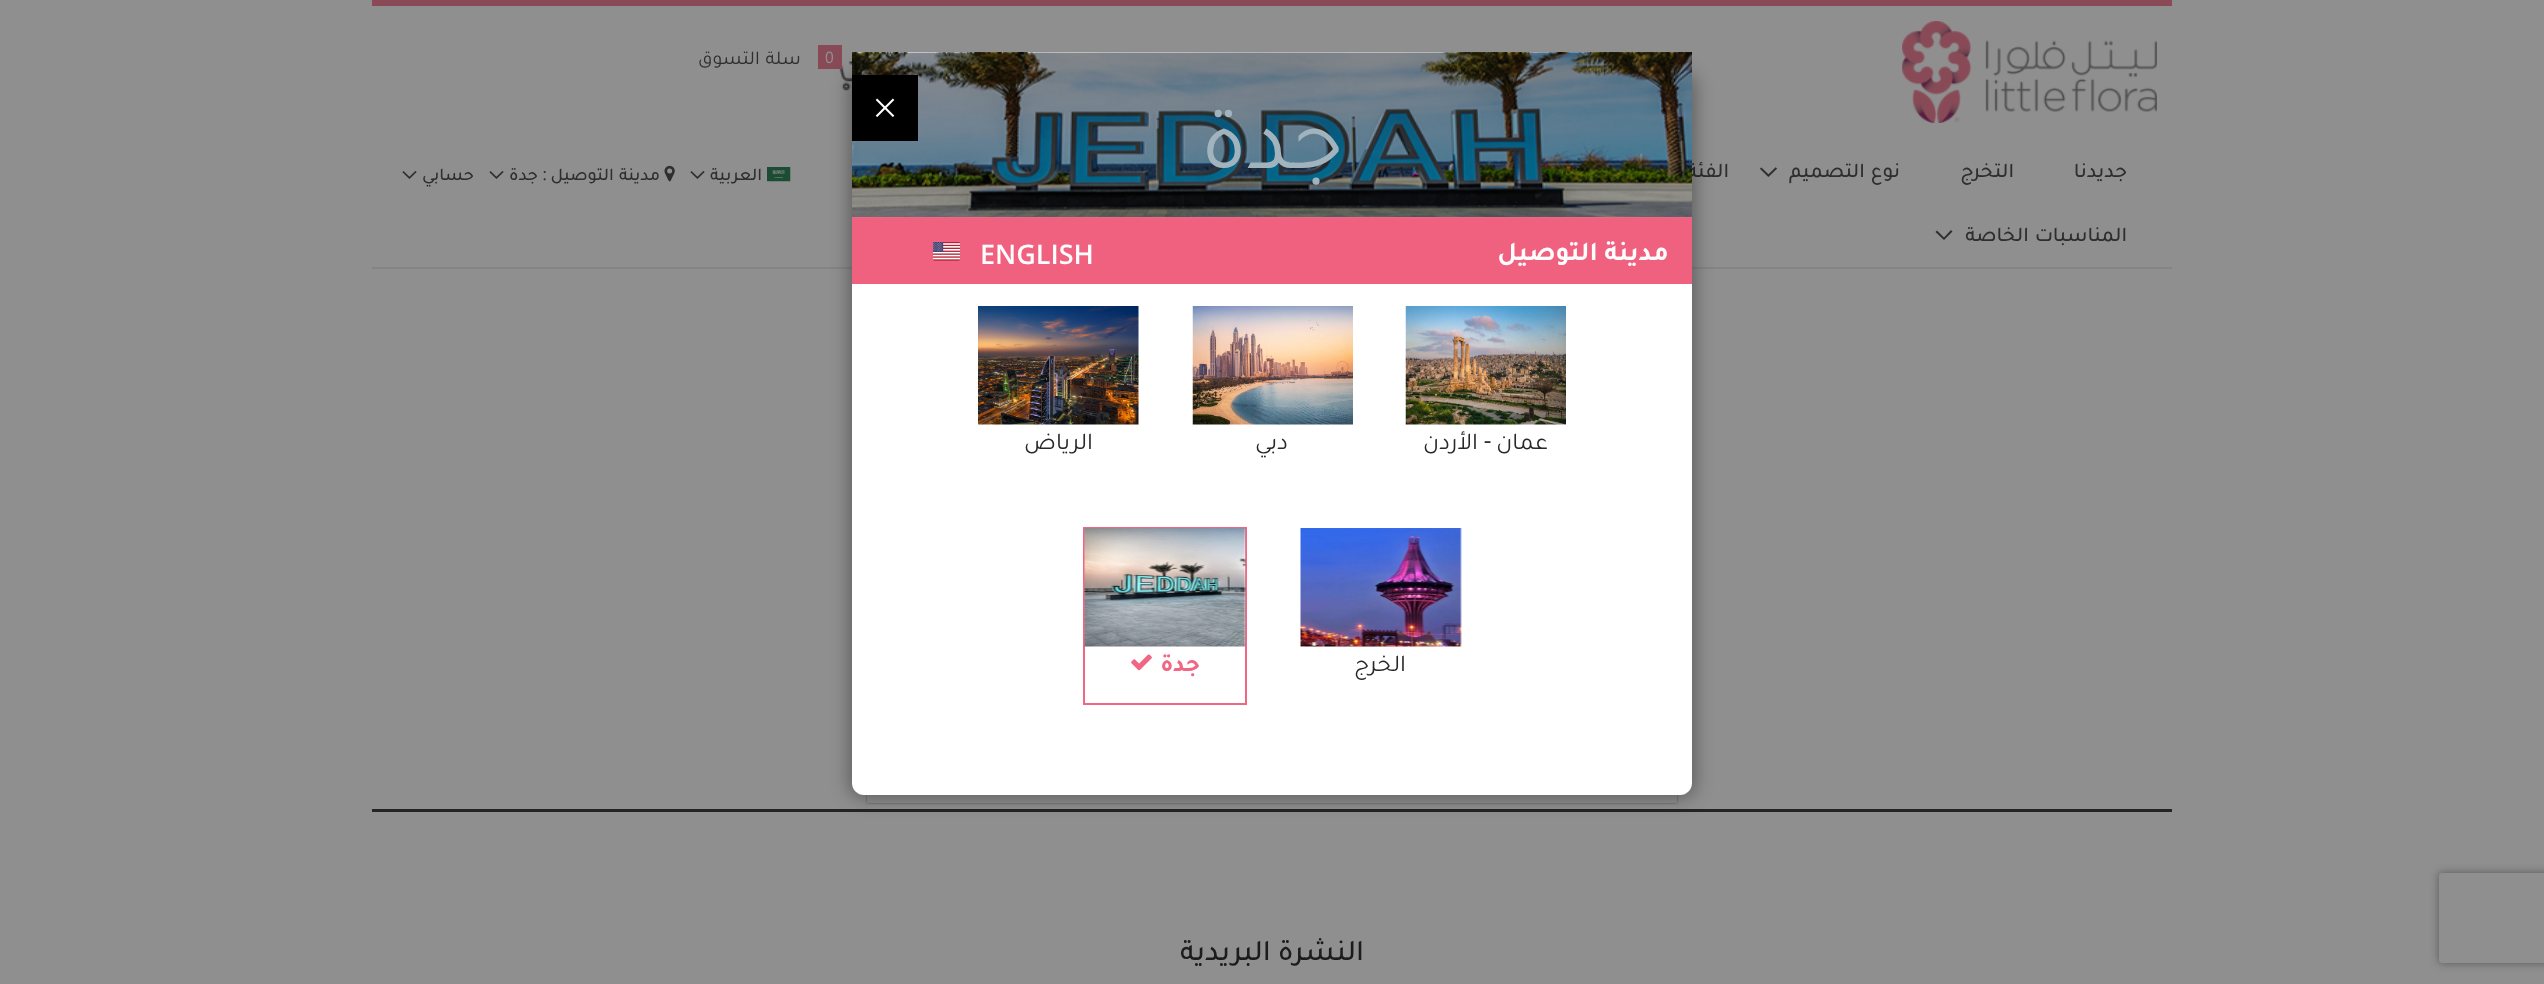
<svg xmlns="http://www.w3.org/2000/svg" width="2544" height="984">
<defs>
<clipPath id="clip1"><path d="M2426 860h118v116h-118zm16 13h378c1.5 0 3 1.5 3 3v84c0 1.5-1.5 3-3 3h-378c-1.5 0-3-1.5-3-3v-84c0-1.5 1.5-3 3-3z" clip-rule="evenodd"/></clipPath>
</defs>
<rect width="100%" height="100%" fill="#8f8f8f"/>
<rect x="372" width="1800" height="6" fill="#894a57"/>
<image x="1902" y="21" width="255" height="102" href="media/1.png"/>
<image x="839" y="61" width="13" height="30" href="media/2.png"/>
<rect x="818" y="45" width="24" height="24" fill="#894a57"/>
<text x="825" y="63" style="font-family:PT Sans;font-size:16px;fill:#8f8f8f">0</text>
<text x="801" y="64" word-spacing="1" style="font-family:Tajawal;font-size:19.5px;direction:rtl;fill:#2e2e2e">سلة التسوق</text>
<rect x="372" y="267" width="1800" height="2" fill="#848484"/>
<text x="2127" y="177" style="font-family:Tajawal;font-size:21px;font-weight:500;direction:rtl;fill:#2e2e2e">جديدنا</text>
<text x="2014" y="177" style="font-family:Tajawal;font-size:21px;font-weight:500;direction:rtl;fill:#2e2e2e">التخرج</text>
<text x="1900" y="177" word-spacing="1" style="font-family:Tajawal;font-size:21px;font-weight:500;direction:rtl;fill:#2e2e2e">نوع التصميم</text>
<image x="1760" y="167" width="17" height="10" href="media/3.png"/>
<text x="1729" y="177" style="font-family:Tajawal;font-size:21px;font-weight:500;direction:rtl;fill:#2e2e2e">الفئة</text>
<text x="2127" y="241" word-spacing="1" style="font-family:Tajawal;font-size:21px;font-weight:500;direction:rtl;fill:#2e2e2e">المناسبات الخاصة</text>
<path d="M1944 237.5l-7-7l-1.5 1.5l8.5 8l8.5-8.5l-1.5-1.5z" fill="#2e2e2e"/>
<image x="767" y="167" width="24" height="15" href="media/4.png"/>
<text x="762" y="180" style="font-family:Tajawal;font-size:18px;font-weight:500;direction:rtl;fill:#2e2e2e">العربية</text>
<image x="690" y="170" width="15" height="9" href="media/5.png"/>
<image x="664" y="165" width="11" height="17" href="media/6.png"/>
<text x="660" y="180" word-spacing="1" style="font-family:Tajawal;font-size:18px;font-weight:500;direction:rtl;fill:#2e2e2e">مدينة التوصيل</text>
<text x="546" y="180" style="font-family:PT Sans;font-size:18px;direction:rtl;fill:#2e2e2e">:</text>
<text x="538" y="180" style="font-family:Tajawal;font-size:18px;font-weight:500;direction:rtl;fill:#2e2e2e">جدة</text>
<image x="489" y="170" width="15" height="9" href="media/5.png"/>
<text x="474" y="180" style="font-family:Tajawal;font-size:18px;font-weight:500;direction:rtl;fill:#2e2e2e">حسابي</text>
<image x="402" y="170" width="15" height="9" href="media/5.png"/>
<rect x="867" y="453" width="810" height="350" fill="#5b5858" filter="blur(1px)"/>
<rect x="867" y="795" width="810" height="8" fill="#8f8f8f"/>
<rect x="372" y="809" width="1800" height="3" fill="#242424"/>
<text x="1364" y="960" style="font-family:Tajawal;font-size:30px;font-weight:500;direction:rtl;fill:#1c1c1c">النشرة البريدية</text>
<rect x="849" y="72" width="846" height="726" rx="15" fill="#00000059" filter="blur(9px)"/>
<rect x="852" y="75" width="840" height="720" rx="12" fill="#fff"/>
<rect x="852" y="217" width="840" height="1" fill="#f16682"/>
<image x="852" y="52" width="840" height="165" href="media/7.png"/>
<text x="1343" y="168" style="font-family:Tajawal;font-size:90px;direction:rtl;fill:#a1b3bc">جدة</text>
<rect x="852" y="218" width="840" height="66" fill="#f06180"/>
<text x="1669" y="260" style="font-family:Tajawal;font-size:27px;font-weight:bold;direction:rtl;fill:#fdfdfd">مدينة التوصيل</text>
<text x="980" y="264" style="font-family:Open Sans;font-size:27px;font-weight:600;fill:#fdfdfd">ENGLISH</text>
<image x="933" y="242" width="27" height="19" href="media/8.png"/>
<image x="1405" y="306" width="161" height="119" href="media/9.png"/>
<text x="1548" y="449" style="font-family:Tajawal;font-size:24px;direction:rtl;fill:#282828">عمان</text>
<text x="1492" y="449" style="font-family:PT Sans;font-size:24px;direction:rtl;fill:#282828">-</text>
<text x="1478" y="449" style="font-family:Tajawal;font-size:24px;direction:rtl;fill:#282828">الأردن</text>
<image x="1192" y="306" width="161" height="119" href="media/10.png"/>
<text x="1288" y="449" style="font-family:Tajawal;font-size:24px;direction:rtl;fill:#282828">دبي</text>
<image x="978" y="306" width="161" height="119" href="media/11.png"/>
<text x="1093" y="449" style="font-family:Tajawal;font-size:24px;direction:rtl;fill:#282828">الرياض</text>
<image x="1300" y="528" width="162" height="119" href="media/12.png"/>
<text x="1406" y="671" style="font-family:Tajawal;font-size:24px;direction:rtl;fill:#282828">الخرج</text>
<rect x="1084" y="528" width="162" height="176" fill="none" stroke="#f16682" stroke-width="2"/>
<image x="1084" y="528" width="162" height="119" href="media/13.png"/>
<text x="1200" y="671" style="font-family:Tajawal;font-size:24px;font-weight:bold;direction:rtl;fill:#f16682">جدة</text>
<image x="1131" y="654" width="21" height="17" href="media/14.png"/>
<rect x="852" y="75" width="66" height="66" fill="#000"/>
<image x="875" y="98" width="20" height="19" href="media/15.png"/>
<g clip-path="url(#clip1)">
<rect x="2439" y="873" width="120" height="90" rx="3" fill="#565656" filter="blur(4px)"/>
</g>
</svg>
